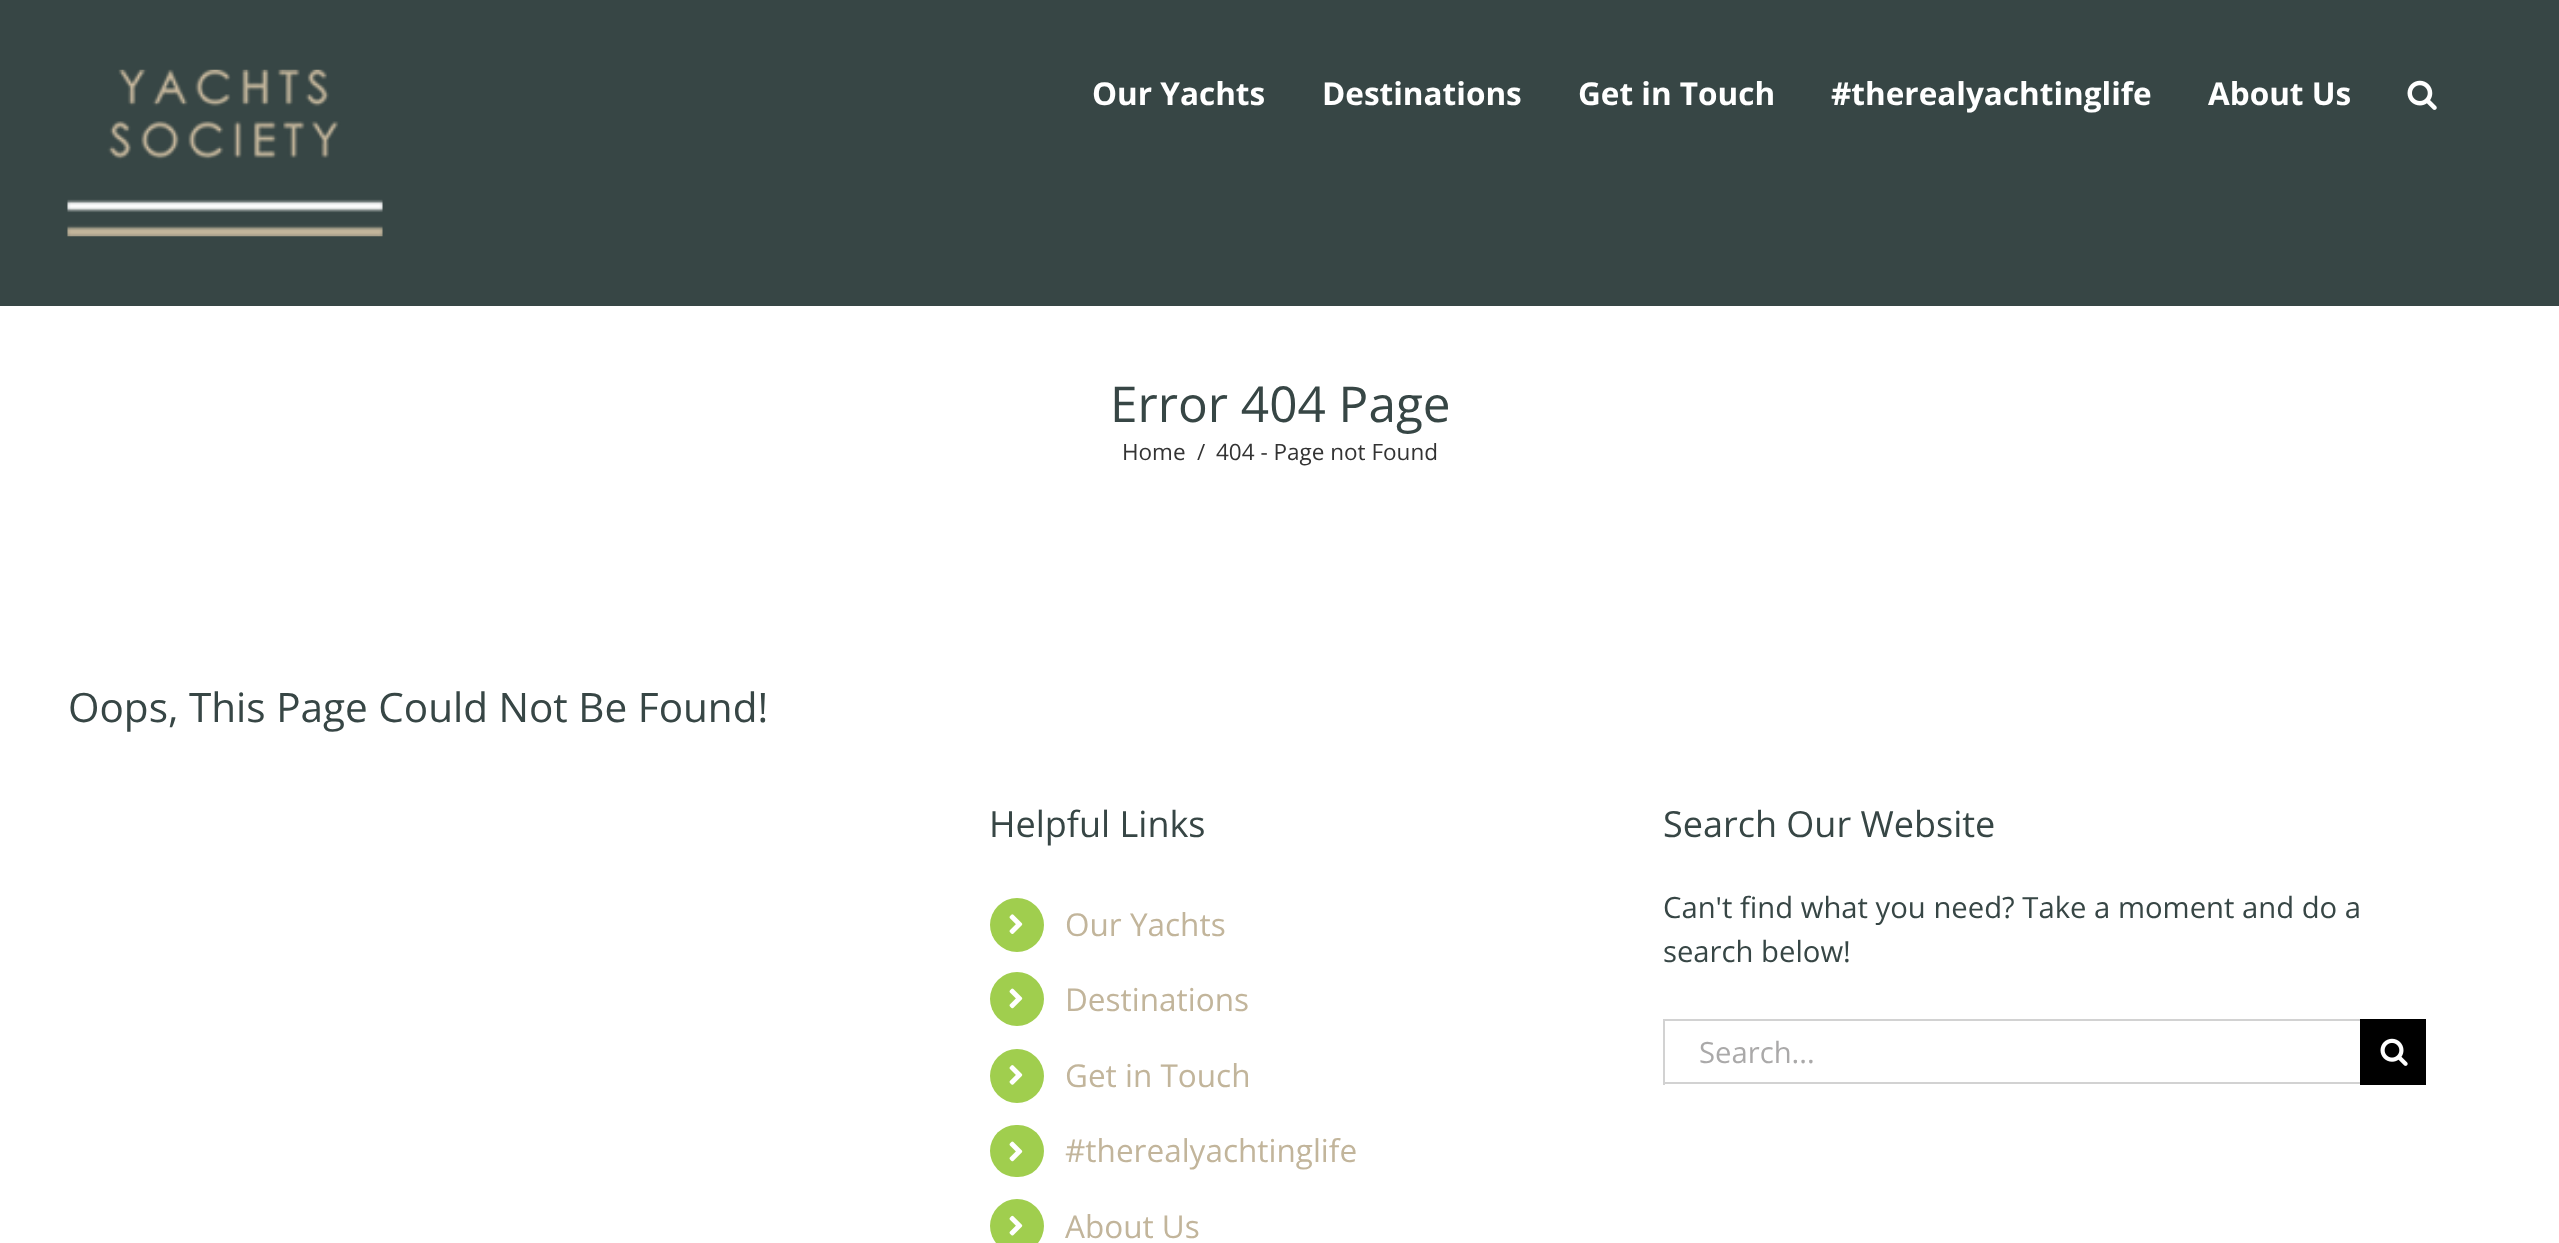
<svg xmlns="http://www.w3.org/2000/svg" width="2559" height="1243">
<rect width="100%" height="100%" fill="#fff"/>
<rect width="2559" height="306" fill="#374645"/>
<image x="67" y="69" width="316" height="168" href="media/1.png"/>
<text x="1092" y="105" style="font-family:Open Sans;font-size:31.5px;font-weight:bold;fill:#fff">Our Yachts</text>
<text x="1322" y="105" style="font-family:Open Sans;font-size:31.5px;font-weight:bold;fill:#fff">Destinations</text>
<text x="1578" y="105" style="font-family:Open Sans;font-size:31.5px;font-weight:bold;fill:#fff">Get in Touch</text>
<text x="1831" y="105" style="font-family:Open Sans;font-size:31.5px;font-weight:bold;fill:#fff">#therealyachtinglife</text>
<text x="2208" y="105" style="font-family:Open Sans;font-size:31.5px;font-weight:bold;fill:#fff">About Us</text>
<image x="2407" y="80" width="30" height="30" href="media/2.png"/>
<text x="1110" y="422" style="font-family:Open Sans;font-size:49.5px;fill:#374645">Error 404 Page</text>
<text x="1122" y="460" style="font-family:Open Sans;font-size:22.5px;fill:#333">Home</text>
<text x="1197" y="460" style="font-family:Open Sans;font-size:22.5px;fill:#333">/</text>
<text x="1216" y="460" style="font-family:Open Sans;font-size:22.5px;fill:#333">404 - Page not Found</text>
<text x="68" y="722" style="font-family:Open Sans;font-size:40.5px;fill:#374645">Oops, This Page Could Not Be Found!</text>
<text x="989" y="837" style="font-family:Open Sans;font-size:36px;fill:#374645">Helpful Links</text>
<circle cx="1017" cy="925" r="27" fill="#a0ce4e"/>
<image x="1009" y="914" width="14" height="20" href="media/3.png"/>
<text x="1065" y="936" style="font-family:Open Sans;font-size:31.5px;fill:#c2b59b">Our Yachts</text>
<circle cx="1017" cy="999" r="27" fill="#a0ce4e"/>
<image x="1009" y="988" width="14" height="21" href="media/4.png"/>
<text x="1065" y="1011" style="font-family:Open Sans;font-size:31.5px;fill:#c2b59b">Destinations</text>
<circle cx="1017" cy="1076" r="27" fill="#a0ce4e"/>
<image x="1009" y="1065" width="14" height="20" href="media/5.png"/>
<text x="1065" y="1087" style="font-family:Open Sans;font-size:31.5px;fill:#c2b59b">Get in Touch</text>
<rect x="990" y="1125" width="54" height="52" rx="26" fill="#a0ce4e"/>
<image x="1009" y="1141" width="14" height="21" href="media/4.png"/>
<text x="1065" y="1162" style="font-family:Open Sans;font-size:31.5px;fill:#c2b59b">#therealyachtinglife</text>
<circle cx="1017" cy="1226" r="27" fill="#a0ce4e"/>
<image x="1009" y="1215" width="14" height="21" href="media/6.png"/>
<text x="1065" y="1238" style="font-family:Open Sans;font-size:31.5px;fill:#c2b59b">About Us</text>
<text x="1663" y="837" style="font-family:Open Sans;font-size:36px;fill:#374645">Search Our Website</text>
<text x="1663" y="918" style="font-family:Open Sans;font-size:29.25px;fill:#374645">Can't find what you need? Take a moment and do a</text>
<text x="1663" y="962" style="font-family:Open Sans;font-size:29.25px;fill:#374645">search below!</text>
<rect x="1663" y="1019" width="697" height="2" fill="#d2d2d2"/>
<rect x="1663" y="1082" width="697" height="2" fill="#d2d2d2"/>
<rect x="1663" y="1019" width="2" height="66" fill="#d2d2d2"/>
<text x="1699" y="1063" style="font-family:Open Sans;font-size:29.25px;fill:#aaa9a9">Search...</text>
<rect x="2360" y="1019" width="66" height="66" fill="#000"/>
<image x="2380" y="1038" width="28" height="28" href="media/7.png"/>
</svg>
